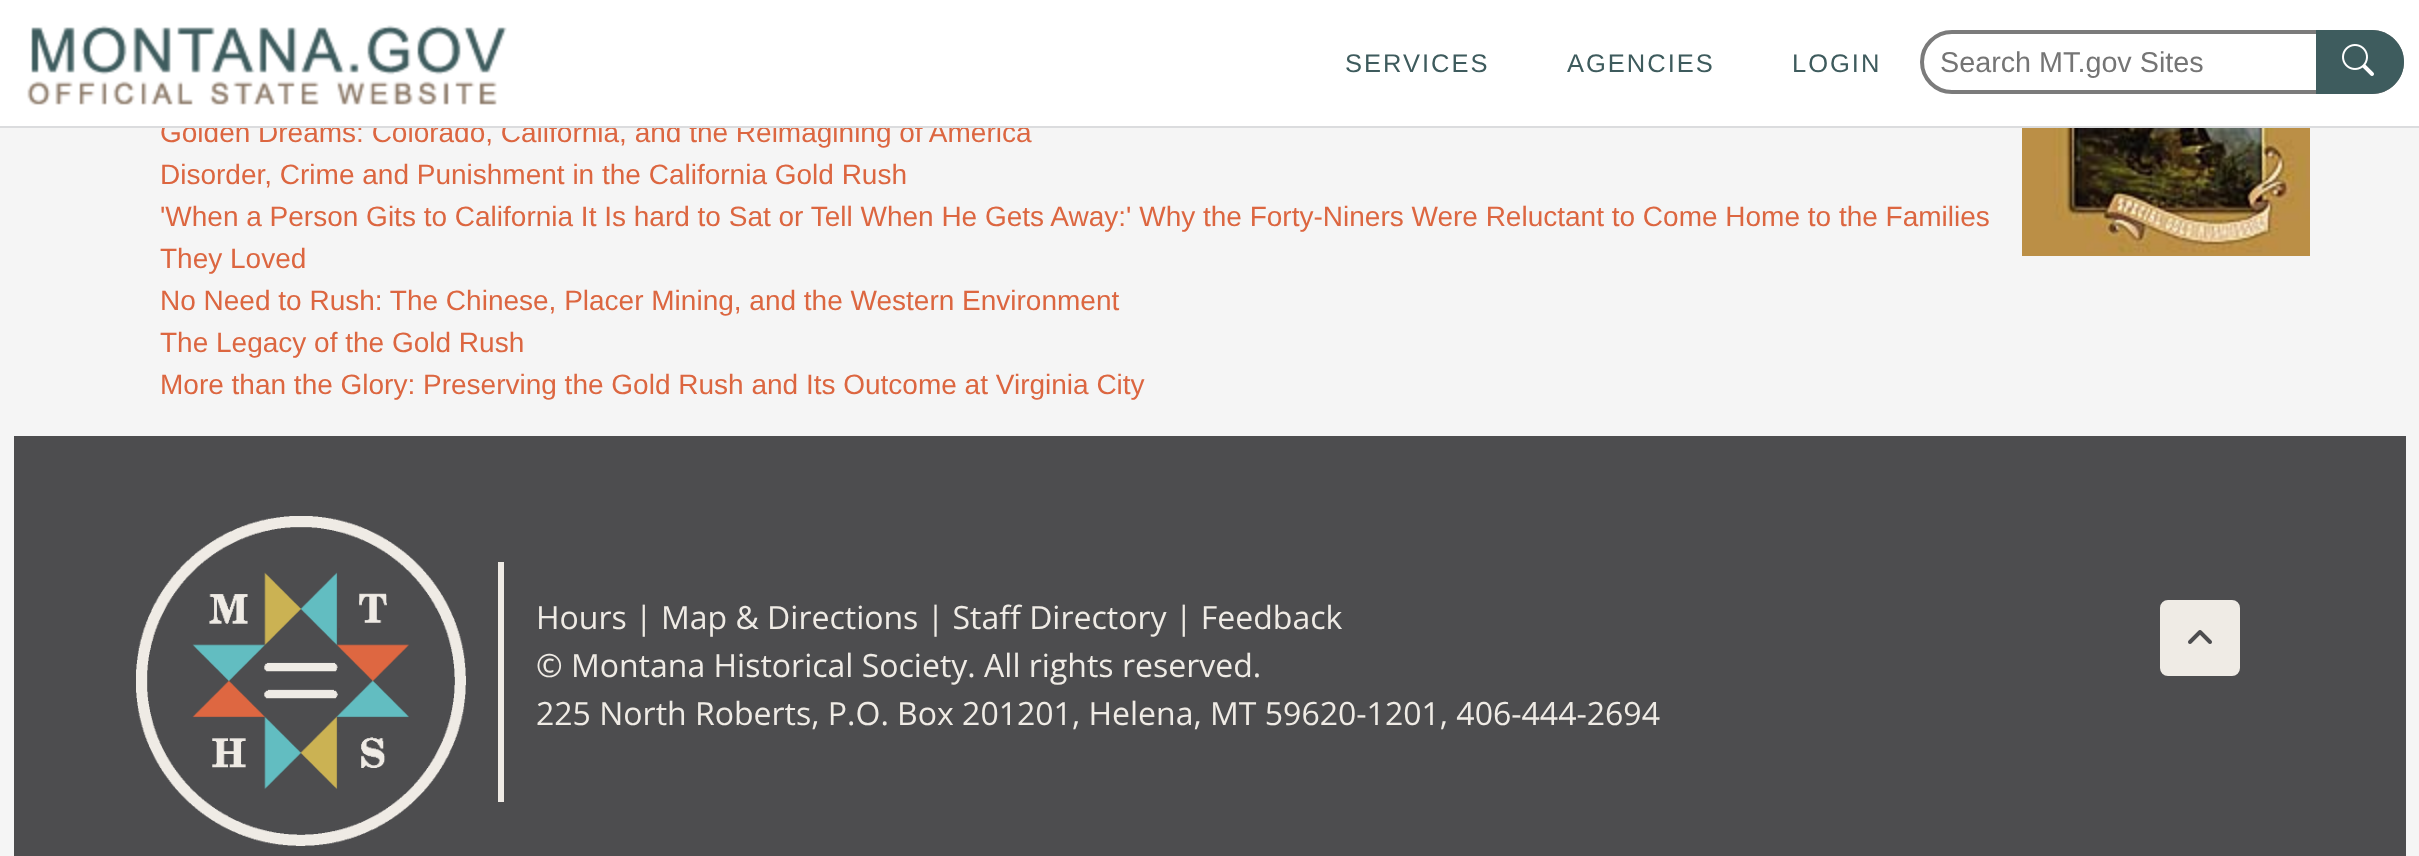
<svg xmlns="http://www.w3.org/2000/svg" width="2419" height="856">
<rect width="100%" height="100%" fill="#f5f5f5"/>
<text x="160" y="142" style="font-family:Liberation Sans;font-size:28px;fill:#dc6640">Golden Dreams: Colorado, California, and the Reimagining of America</text>
<rect width="2419" height="126" fill="#fff"/>
<rect y="126" width="2419" height="2" fill="#dbdcde"/>
<image x="27" y="25" width="480" height="80" href="media/1.png"/>
<text x="1345" y="72" style="font-family:Liberation Sans;font-size:25.5px;letter-spacing:2px;fill:#3e5b5d">SERVICES</text>
<text x="1567" y="72" style="font-family:Liberation Sans;font-size:25.5px;letter-spacing:2px;fill:#3e5b5d">AGENCIES</text>
<text x="1792" y="72" style="font-family:Liberation Sans;font-size:25.5px;letter-spacing:2px;fill:#3e5b5d">LOGIN</text>
<rect x="1922" y="32" width="480" height="60" rx="30" fill="none" stroke="#7b7b7b" stroke-width="4"/>
<text x="1940" y="72" style="font-family:Liberation Sans;font-size:28.75px;fill:#757575">Search MT.gov Sites</text>
<path d="M2316 30h56c17.5 0 32 14.5 32 32c0 17.5-14.5 32-32 32h-56z" fill="#3e5c5e"/>
<image x="2342" y="44" width="32" height="32" href="media/2.png"/>
<text x="160" y="184" style="font-family:Liberation Sans;font-size:28px;fill:#dc6640">Disorder, Crime and Punishment in the California Gold Rush</text>
<text x="160" y="226" style="font-family:Liberation Sans;font-size:28px;fill:#dc6640">'When a Person Gits to California It Is hard to Sat or Tell When He Gets Away:' Why the Forty-Niners Were Reluctant to Come Home to the Families</text>
<text x="160" y="268" style="font-family:Liberation Sans;font-size:28px;fill:#dc6640">They Loved</text>
<text x="160" y="310" style="font-family:Liberation Sans;font-size:28px;fill:#dc6640">No Need to Rush: The Chinese, Placer Mining, and the Western Environment</text>
<text x="160" y="352" style="font-family:Liberation Sans;font-size:28px;fill:#dc6640">The Legacy of the Gold Rush</text>
<text x="160" y="394" style="font-family:Liberation Sans;font-size:28px;fill:#dc6640">More than the Glory: Preserving the Gold Rush and Its Outcome at Virginia City</text>
<image x="2022" y="128" width="288" height="128" href="media/3.png"/>
<rect x="14" y="436" width="2392" height="420" fill="#4d4d4f"/>
<image x="136" y="516" width="330" height="330" href="media/4.png"/>
<rect x="498" y="562" width="6" height="240" fill="#efebe5"/>
<text x="536" y="629" style="font-family:Open Sans;font-size:32px;fill:#efebe5">Hours | Map &amp; Directions | Staff Directory | Feedback</text>
<text x="536" y="677" style="font-family:Open Sans;font-size:32px;fill:#efebe5">© Montana Historical Society. All rights reserved.</text>
<text x="536" y="725" style="font-family:Open Sans;font-size:32px;fill:#efebe5">225 North Roberts, P.O. Box 201201, Helena, MT 59620-1201, 406-444-2694</text>
<rect x="2161" y="601" width="78" height="74" rx="7" fill="#efebe5" stroke="#efebe5" stroke-width="2"/>
<image x="2188" y="630" width="24" height="14" href="media/5.png"/>
</svg>
